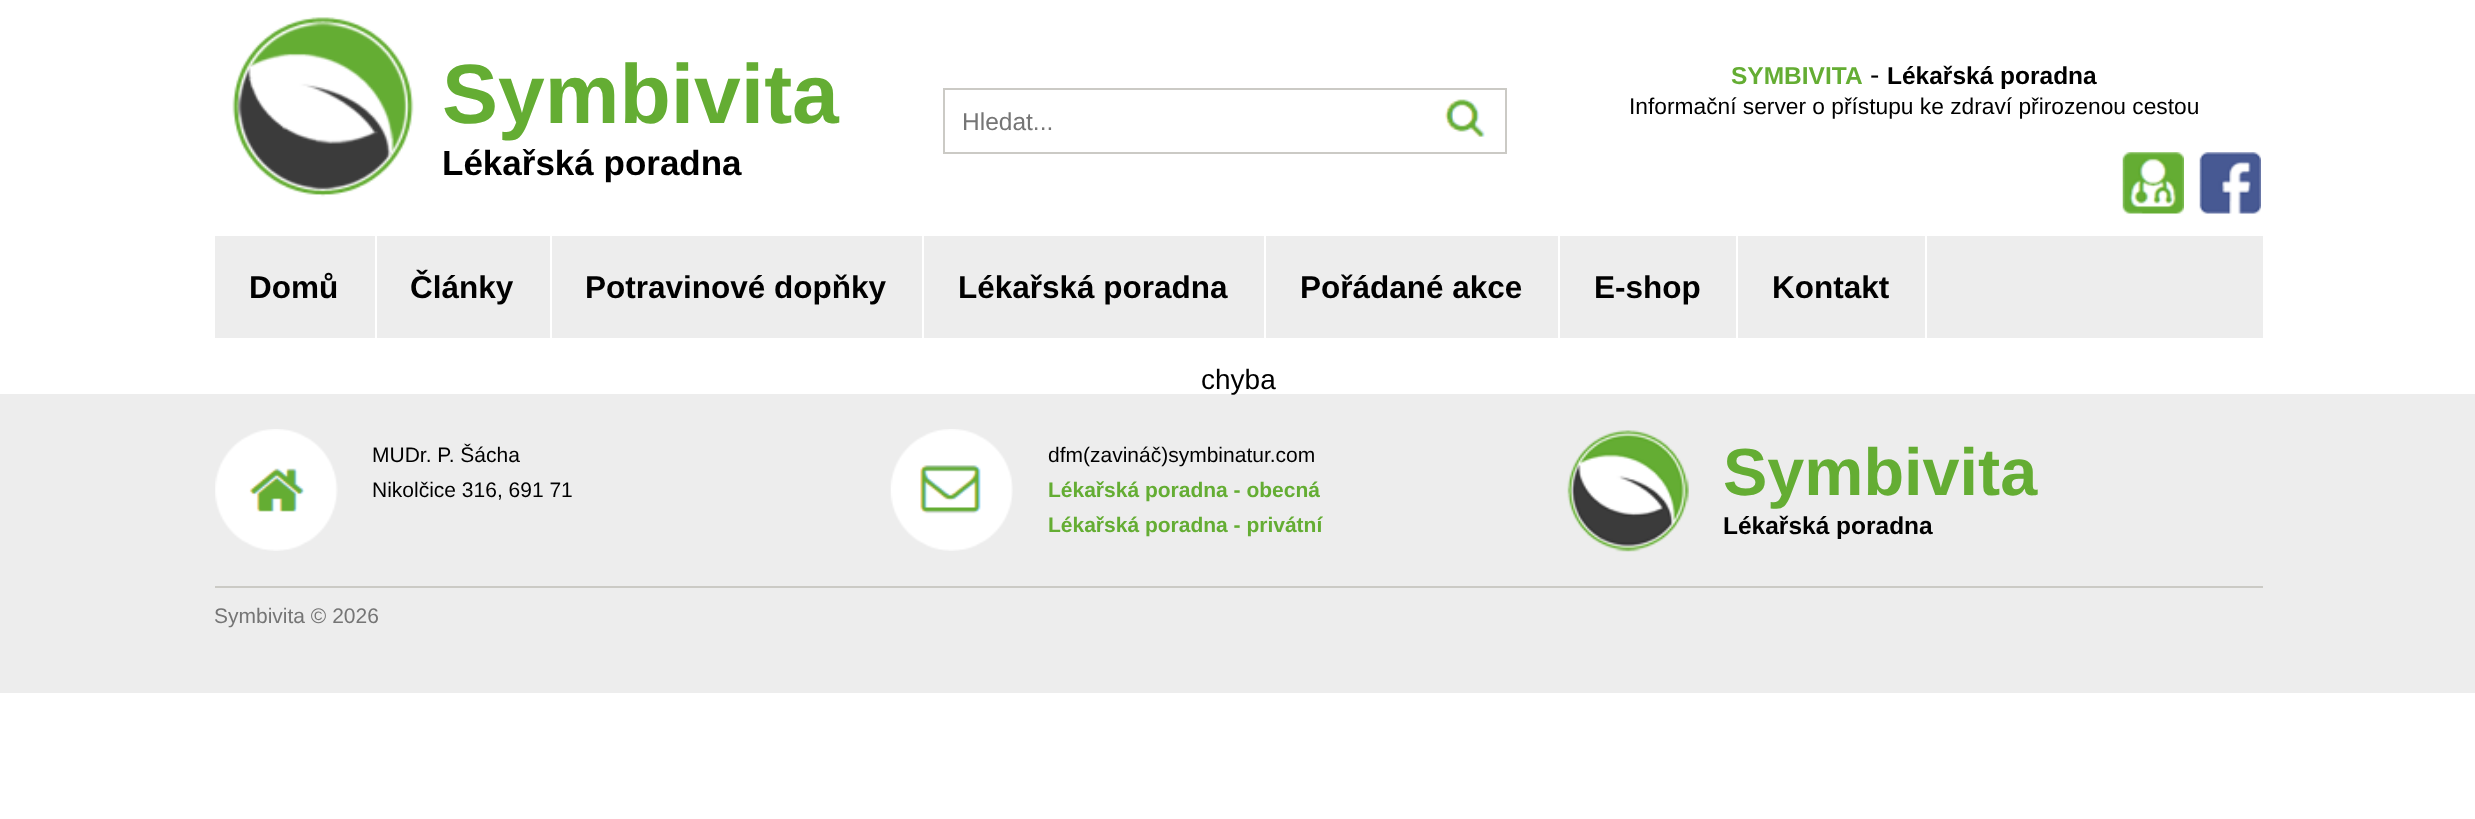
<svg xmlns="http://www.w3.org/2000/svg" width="2475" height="819">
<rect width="100%" height="100%" fill="#fff"/>
<image x="232" y="17" width="182" height="180" href="media/1.png"/>
<text x="442" y="123" style="font-family:Liberation Sans;font-size:84px;font-weight:bold;fill:#64ad33">Symbivita</text>
<text x="442" y="175" style="font-family:Liberation Sans;font-size:35px;font-weight:bold;fill:#000">Lékařská poradna</text>
<text x="1731" y="84" style="font-family:Liberation Sans;font-size:24.5px;font-weight:bold;fill:#64ad33">SYMBIVITA</text>
<text x="1870" y="84" style="font-family:Liberation Sans;font-size:28px;fill:#000">-</text>
<text x="1887" y="84" style="font-family:Liberation Sans;font-size:24.5px;font-weight:bold;fill:#000">Lékařská poradna</text>
<text x="1629" y="114" style="font-family:Liberation Sans;font-size:22.75px;fill:#000">Informační server o přístupu ke zdraví přirozenou cestou</text>
<image x="2122" y="152" width="62" height="62" href="media/2.png"/>
<image x="2199" y="152" width="62" height="62" href="media/3.png"/>
<rect x="944" y="89" width="562" height="64" fill="none" stroke="#cbcac5" stroke-width="2"/>
<text x="962" y="130" style="font-family:Liberation Sans;font-size:24.5px;fill:#757575">Hledat...</text>
<image x="1445" y="99" width="40" height="38" href="media/4.png"/>
<rect x="215" y="236" width="2048" height="102" fill="#ededed"/>
<rect x="375" y="236" width="2" height="102" fill="#fff"/>
<text x="249" y="298" style="font-family:Liberation Sans;font-size:31.5px;font-weight:bold;fill:#000">Domů</text>
<rect x="550" y="236" width="2" height="102" fill="#fff"/>
<text x="410" y="298" style="font-family:Liberation Sans;font-size:31.5px;font-weight:bold;fill:#000">Články</text>
<rect x="922" y="236" width="2" height="102" fill="#fff"/>
<text x="585" y="298" style="font-family:Liberation Sans;font-size:31.5px;font-weight:bold;fill:#000">Potravinové dopňky</text>
<rect x="1264" y="236" width="2" height="102" fill="#fff"/>
<text x="958" y="298" style="font-family:Liberation Sans;font-size:31.5px;font-weight:bold;fill:#000">Lékařská poradna</text>
<rect x="1558" y="236" width="2" height="102" fill="#fff"/>
<text x="1300" y="298" style="font-family:Liberation Sans;font-size:31.5px;font-weight:bold;fill:#000">Pořádané akce</text>
<rect x="1736" y="236" width="2" height="102" fill="#fff"/>
<text x="1594" y="298" style="font-family:Liberation Sans;font-size:31.5px;font-weight:bold;fill:#000">E-shop</text>
<rect x="1925" y="236" width="2" height="102" fill="#fff"/>
<text x="1772" y="298" style="font-family:Liberation Sans;font-size:31.5px;font-weight:bold;fill:#000">Kontakt</text>
<rect y="394" width="2475" height="299" fill="#ededed"/>
<text x="1201" y="389" style="font-family:Liberation Sans;font-size:28px;fill:#000">chyba</text>
<image x="215" y="429" width="123" height="122" href="media/5.png"/>
<text x="372" y="462" style="font-family:Liberation Sans;font-size:21px;fill:#000">MUDr. P. Šácha</text>
<text x="372" y="497" style="font-family:Liberation Sans;font-size:21px;fill:#000">Nikolčice 316, 691 71</text>
<image x="890" y="429" width="123" height="122" href="media/6.png"/>
<text x="1048" y="462" style="font-family:Liberation Sans;font-size:21px;fill:#000">dfm(zavináč)symbinatur.com</text>
<text x="1048" y="497" style="font-family:Liberation Sans;font-size:21px;font-weight:bold;fill:#64ad33">Lékařská poradna - obecná</text>
<text x="1048" y="532" style="font-family:Liberation Sans;font-size:21px;font-weight:bold;fill:#64ad33">Lékařská poradna - privátní</text>
<image x="1567" y="430" width="122" height="122" href="media/7.png"/>
<text x="1723" y="495" style="font-family:Liberation Sans;font-size:66.5px;font-weight:bold;fill:#64ad33">Symbivita</text>
<text x="1723" y="534" style="font-family:Liberation Sans;font-size:24.5px;font-weight:bold;fill:#000">Lékařská poradna</text>
<rect x="215" y="586" width="2048" height="2" fill="#cbcac5"/>
<text x="214" y="623" style="font-family:Liberation Sans;font-size:21px;fill:#757575">Symbivita © 2026</text>
</svg>
